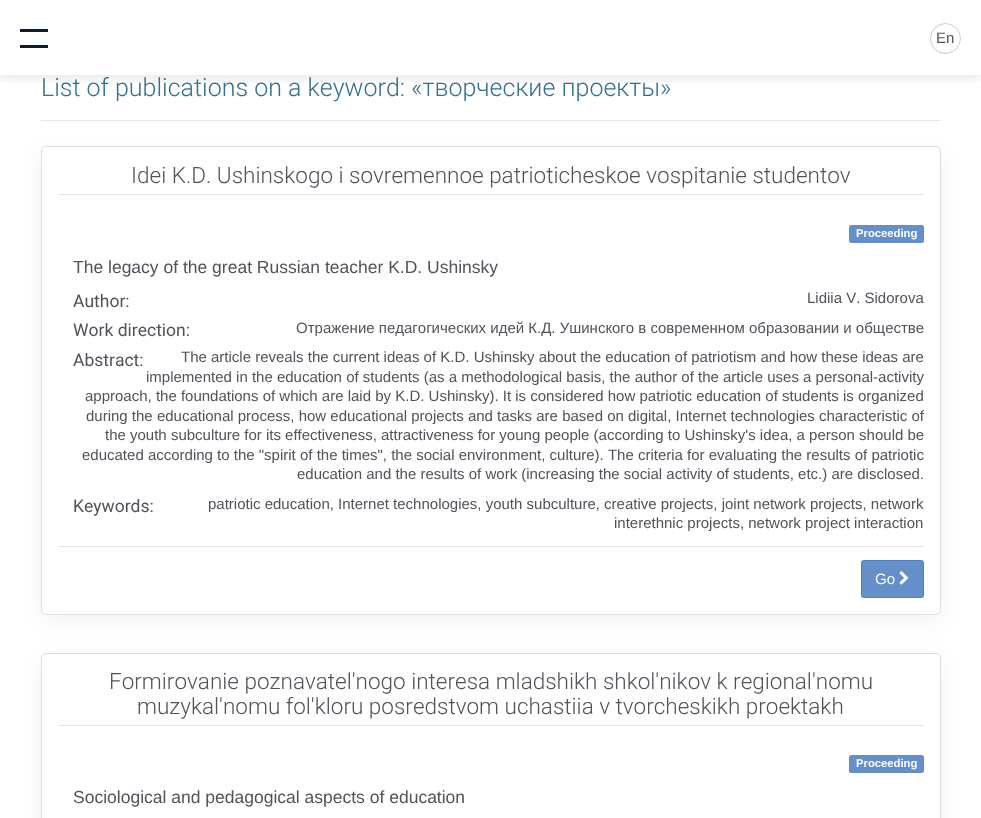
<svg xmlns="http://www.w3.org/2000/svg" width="981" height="818">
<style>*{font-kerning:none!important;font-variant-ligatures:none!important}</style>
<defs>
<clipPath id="clip1"><rect x="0" y="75" width="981" height="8"/></clipPath>
</defs>
<rect width="100%" height="100%" fill="#fff"/>
<g clip-path="url(#clip1)">
<rect y="3" width="981" height="75" fill="#0000001a" filter="blur(6px)"/>
</g>
<rect x="20" y="29" width="28" height="3" fill="#0e1c2a"/>
<rect x="20" y="45" width="28" height="3" fill="#0e1c2a"/>
<circle cx="945.5" cy="38.5" r="15" fill="none" stroke="#ccc"/>
<text x="936" y="43" style="font-family:Liberation Sans;font-size:15px;fill:#52525c">En</text>
<rect x="41" y="120" width="900" height="1" fill="#e6e6e6"/>
<text x="41" y="96" style="font-family:Roboto;font-size:25px;font-weight:300;fill:#31708f">List of publications on a keyword: «творческие проекты»</text>
<rect x="41" y="153" width="900" height="468" rx="5" fill="#0000000d" filter="blur(12.5px)"/>
<rect x="41.5" y="146.5" width="899" height="468" rx="4.5" fill="#fff" stroke="#dfdfdf"/>
<rect x="58" y="194" width="866" height="1" fill="#e6e6e6"/>
<text x="131" y="183" style="font-family:Roboto;font-size:22.5px;font-weight:300;fill:#52525c">Idei K.D. Ushinskogo i sovremennoe patrioticheskoe vospitanie studentov</text>
<rect x="849" y="225" width="75" height="18" rx="2.5" fill="#648fc9"/>
<text x="856" y="237" style="font-family:Liberation Sans;font-size:11.25px;font-weight:bold;fill:#fff">Proceeding</text>
<text x="73" y="273" style="font-family:Liberation Sans;font-size:17.5px;fill:#52525c">The legacy of the great Russian teacher K.D. Ushinsky</text>
<text x="73" y="307" style="font-family:Roboto;font-size:17.5px;fill:#52525c">Author:</text>
<text x="807" y="303" style="font-family:Liberation Sans;font-size:15px;fill:#52525c">Lidiia V. Sidorova</text>
<text x="73" y="336" style="font-family:Roboto;font-size:17.5px;fill:#52525c">Work direction:</text>
<text x="296" y="333" style="font-family:Liberation Sans;font-size:15px;fill:#52525c">Отражение педагогических идей К.Д. Ушинского в современном образовании и обществе</text>
<text x="181" y="362" style="font-family:Liberation Sans;font-size:15px;fill:#52525c">The article reveals the current ideas of K.D. Ushinsky about the education of patriotism and how these ideas are</text>
<text x="146" y="382" style="font-family:Liberation Sans;font-size:15px;fill:#52525c">implemented in the education of students (as a methodological basis, the author of the article uses a personal-activity</text>
<text x="85" y="401" style="font-family:Liberation Sans;font-size:15px;fill:#52525c">approach, the foundations of which are laid by K.D. Ushinsky). It is considered how patriotic education of students is organized</text>
<text x="86" y="421" style="font-family:Liberation Sans;font-size:15px;fill:#52525c">during the educational process, how educational projects and tasks are based on digital, Internet technologies characteristic of</text>
<text x="105" y="440" style="font-family:Liberation Sans;font-size:15px;fill:#52525c">the youth subculture for its effectiveness, attractiveness for young people (according to Ushinsky's idea, a person should be</text>
<text x="82" y="460" style="font-family:Liberation Sans;font-size:15px;fill:#52525c">educated according to the "spirit of the times", the social environment, culture). The criteria for evaluating the results of patriotic</text>
<text x="297" y="479" style="font-family:Liberation Sans;font-size:15px;fill:#52525c">education and the results of work (increasing the social activity of students, etc.) are disclosed.</text>
<text x="73" y="366" style="font-family:Roboto;font-size:17.5px;fill:#52525c">Abstract:</text>
<text x="73" y="512" style="font-family:Roboto;font-size:17.5px;fill:#52525c">Keywords:</text>
<text x="208" y="509" style="font-family:Liberation Sans;font-size:15px;fill:#52525c">patriotic education, Internet technologies, youth subculture, creative projects, joint network projects, network</text>
<text x="614" y="528" style="font-family:Liberation Sans;font-size:15px;fill:#52525c">interethnic projects, network project interaction</text>
<rect x="58" y="546" width="866" height="1" fill="#e6e6e6"/>
<rect x="861.5" y="560.5" width="62" height="37" rx="2" fill="#648fc9" stroke="#5181c2"/>
<text x="875" y="584" style="font-family:Liberation Sans;font-size:15px;fill:#fff">Go</text>
<image x="899" y="571" width="10" height="14" href="media/1.png"/>
<rect x="41" y="659" width="900" height="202" rx="5" fill="#0000000d" filter="blur(12.5px)"/>
<rect x="41.5" y="653.5" width="899" height="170" rx="4.5" fill="#fff" stroke="#dfdfdf"/>
<rect x="58" y="725" width="866" height="1" fill="#e6e6e6"/>
<text x="109" y="689" style="font-family:Roboto;font-size:22.5px;font-weight:300;fill:#52525c">Formirovanie poznavatel'nogo interesa mladshikh shkol'nikov k regional'nomu</text>
<text x="137" y="714" style="font-family:Roboto;font-size:22.5px;font-weight:300;fill:#52525c">muzykal'nomu fol'kloru posredstvom uchastiia v tvorcheskikh proektakh</text>
<rect x="849" y="755" width="75" height="18" rx="2.5" fill="#648fc9"/>
<text x="856" y="767" style="font-family:Liberation Sans;font-size:11.25px;font-weight:bold;fill:#fff">Proceeding</text>
<text x="73" y="803" style="font-family:Liberation Sans;font-size:17.5px;fill:#52525c">Sociological and pedagogical aspects of education</text>
</svg>
